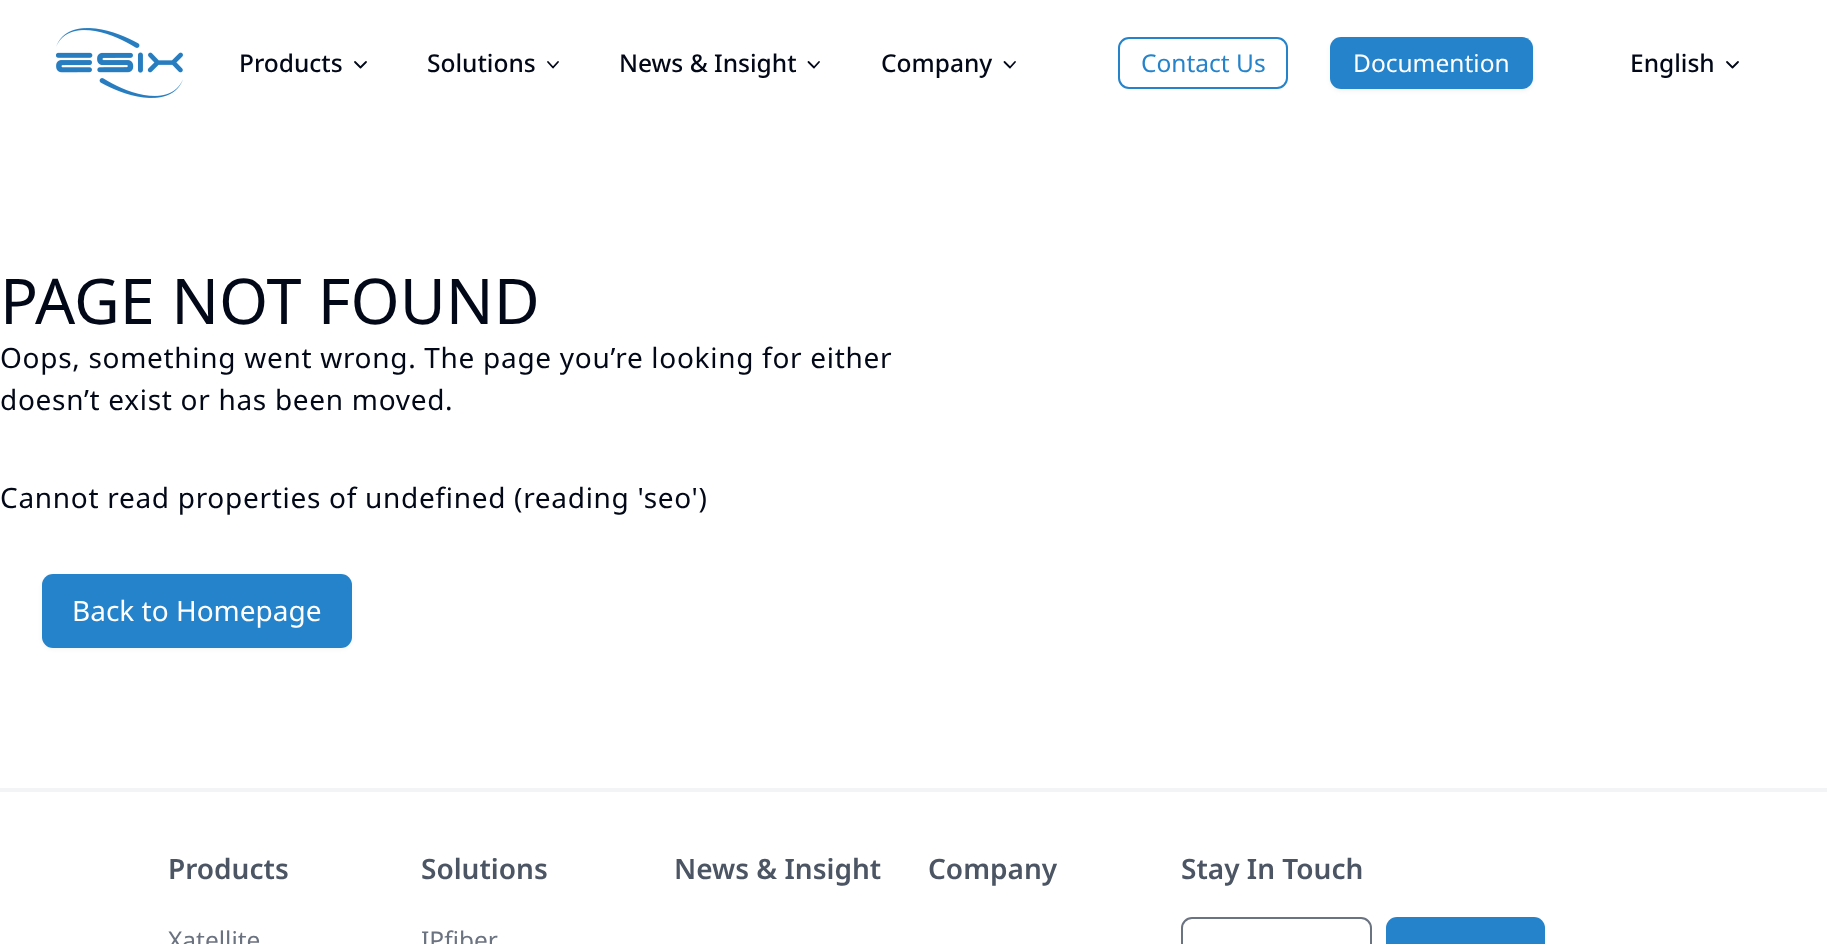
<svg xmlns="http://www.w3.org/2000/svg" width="1827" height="944">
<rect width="100%" height="100%" fill="#fff"/>
<image x="56" y="28" width="127" height="70" href="media/1.png"/>
<text x="239" y="72" style="font-family:Noto Sans;font-size:24.5px;font-weight:500;fill:#020817">Products</text>
<path d="M355 62l5.5 5.5l5.5-5.5" fill="none" stroke="#020817" stroke-width="1.8" stroke-linecap="round" stroke-linejoin="round"/>
<text x="427" y="72" style="font-family:Noto Sans;font-size:24.5px;font-weight:500;fill:#020817">Solutions</text>
<path d="M548 62l5 5.5l5-5.5" fill="none" stroke="#020817" stroke-width="1.8" stroke-linecap="round" stroke-linejoin="round"/>
<text x="619" y="72" style="font-family:Noto Sans;font-size:24.5px;font-weight:500;fill:#020817">News &amp; Insight</text>
<path d="M808.5 62l5.5 5.5l5-5.5" fill="none" stroke="#020817" stroke-width="1.8" stroke-linecap="round" stroke-linejoin="round"/>
<text x="881" y="72" style="font-family:Noto Sans;font-size:24.5px;font-weight:500;fill:#020817">Company</text>
<path d="M1004.5 62l5.5 5.5l5-5.5" fill="none" stroke="#020817" stroke-width="1.8" stroke-linecap="round" stroke-linejoin="round"/>
<rect x="1119" y="38" width="168" height="50" rx="10" fill="none" stroke="#2583cb" stroke-width="2"/>
<text x="1141" y="72" style="font-family:Noto Sans;font-size:24.5px;fill:#2583cb">Contact Us</text>
<rect x="1330" y="39" width="203" height="52" rx="11" fill="#0000000d" filter="blur(2px)"/>
<rect x="1330" y="37" width="203" height="52" rx="11" fill="#2583cb"/>
<text x="1353" y="72" style="font-family:Noto Sans;font-size:24.5px;fill:#fff">Documention</text>
<text x="1630" y="72" style="font-family:Noto Sans;font-size:24.5px;font-weight:500;fill:#020817">English</text>
<path d="M1727 62l5.5 5.5l5.5-5.5" fill="none" stroke="#020817" stroke-width="1.8" stroke-linecap="round" stroke-linejoin="round"/>
<text x="0" y="324" style="font-family:Noto Sans;font-size:63px;fill:#020817">PAGE NOT FOUND</text>
<text x="0" y="368" style="font-family:Noto Sans;font-size:28px;letter-spacing:0.7px;fill:#020817">Oops, something went wrong. The page you’re looking for either</text>
<text x="0" y="410" style="font-family:Noto Sans;font-size:28px;letter-spacing:0.7px;fill:#020817">doesn’t exist or has been moved.</text>
<text x="0" y="508" style="font-family:Noto Sans;font-size:28px;letter-spacing:0.7px;fill:#020817">Cannot read properties of undefined (reading 'seo')</text>
<rect x="42" y="576" width="310" height="73" rx="11" fill="#0000000d" filter="blur(2px)"/>
<rect x="42" y="574" width="310" height="74" rx="11" fill="#2583cb"/>
<text x="72" y="621" style="font-family:Noto Sans;font-size:28px;fill:#fff">Back to Homepage</text>
<rect y="788" width="1827" height="4" fill="#f3f4f6"/>
<text x="168" y="879" style="font-family:Noto Sans;font-size:28px;font-weight:600;fill:#4b5563">Products</text>
<text x="168" y="949" style="font-family:Noto Sans;font-size:24.5px;fill:#6b7280">Xatellite</text>
<text x="421" y="879" style="font-family:Noto Sans;font-size:28px;font-weight:600;fill:#4b5563">Solutions</text>
<text x="421" y="949" style="font-family:Noto Sans;font-size:24.5px;fill:#6b7280">IPfiber</text>
<text x="674" y="879" style="font-family:Noto Sans;font-size:28px;font-weight:600;fill:#4b5563">News &amp; Insight</text>
<text x="928" y="879" style="font-family:Noto Sans;font-size:28px;font-weight:600;fill:#4b5563">Company</text>
<text x="1181" y="879" style="font-family:Noto Sans;font-size:28px;font-weight:600;fill:#4b5563">Stay In Touch</text>
<rect x="1182" y="918" width="189" height="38" rx="10" fill="none" stroke="#6b7280" stroke-width="2"/>
<rect x="1386" y="917" width="159" height="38" rx="11" fill="#2583cb"/>
</svg>
